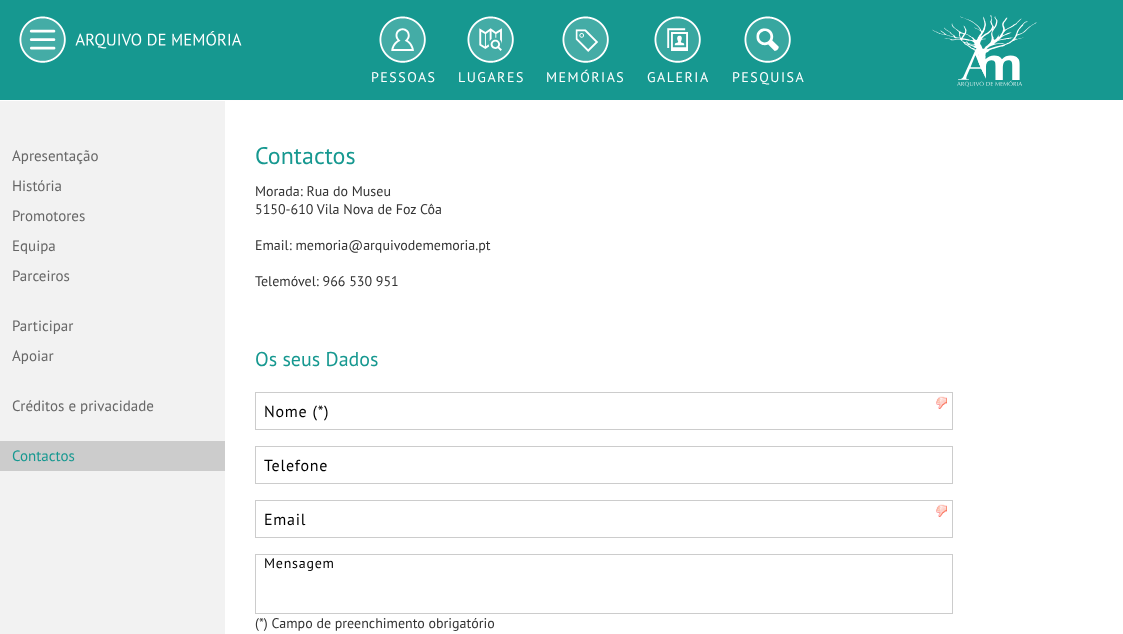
<svg xmlns="http://www.w3.org/2000/svg" width="1123" height="634">
<rect width="100%" height="100%" fill="#fff"/>
<rect width="1123" height="100" fill="#169890"/>
<image x="19" y="16" width="47" height="47" href="media/1.png"/>
<image x="75" y="31" width="167" height="18" href="media/2.png"/>
<image x="932" y="15" width="105" height="72" href="media/3.png"/>
<image x="379" y="16" width="47" height="47" href="media/4.png"/>
<text x="371" y="82" style="font-family:PT Sans;font-size:14px;letter-spacing:1.5px;fill:#fff">PESSOAS</text>
<image x="467" y="16" width="47" height="47" href="media/5.png"/>
<text x="458" y="82" style="font-family:PT Sans;font-size:14px;letter-spacing:1.5px;fill:#fff">LUGARES</text>
<image x="562" y="16" width="47" height="47" href="media/6.png"/>
<text x="546" y="82" style="font-family:PT Sans;font-size:14px;letter-spacing:1.5px;fill:#fff">MEMÓRIAS</text>
<image x="654" y="16" width="47" height="47" href="media/7.png"/>
<text x="647" y="82" style="font-family:PT Sans;font-size:14px;letter-spacing:1.5px;fill:#fff">GALERIA</text>
<image x="744" y="16" width="47" height="47" href="media/8.png"/>
<text x="732" y="82" style="font-family:PT Sans;font-size:14px;letter-spacing:1.5px;fill:#fff">PESQUISA</text>
<rect y="101" width="225" height="533" fill="#f2f2f2"/>
<text x="12" y="161" style="font-family:PT Sans;font-size:15px;fill:#666">Apresentação</text>
<text x="12" y="191" style="font-family:PT Sans;font-size:15px;fill:#666">História</text>
<text x="12" y="221" style="font-family:PT Sans;font-size:15px;fill:#666">Promotores</text>
<text x="12" y="251" style="font-family:PT Sans;font-size:15px;fill:#666">Equipa</text>
<text x="12" y="281" style="font-family:PT Sans;font-size:15px;fill:#666">Parceiros</text>
<text x="12" y="331" style="font-family:PT Sans;font-size:15px;fill:#666">Participar</text>
<text x="12" y="361" style="font-family:PT Sans;font-size:15px;fill:#666">Apoiar</text>
<text x="12" y="411" style="font-family:PT Sans;font-size:15px;fill:#666">Créditos e privacidade</text>
<rect y="441" width="225" height="30" fill="#ccc"/>
<text x="12" y="461" style="font-family:PT Sans;font-size:15px;fill:#169890">Contactos</text>
<text x="255" y="164" style="font-family:PT Sans;font-size:24px;fill:#169890">Contactos</text>
<text x="255" y="196" style="font-family:PT Sans;font-size:14px;fill:#333">Morada: Rua do Museu</text>
<text x="255" y="214" style="font-family:PT Sans;font-size:14px;fill:#333">5150-610 Vila Nova de Foz Côa</text>
<text x="255" y="250" style="font-family:PT Sans;font-size:14px;fill:#333">Email: memoria@arquivodememoria.pt</text>
<text x="255" y="286" style="font-family:PT Sans;font-size:14px;fill:#333">Telemóvel: 966 530 951</text>
<text x="255" y="366" style="font-family:PT Sans;font-size:20px;fill:#169890">Os seus Dados</text>
<image x="936" y="396" width="11" height="13" href="media/9.png"/>
<rect x="255.5" y="392.5" width="697" height="37" fill="none" stroke="#ccc"/>
<text x="264" y="417" style="font-family:PT Sans;font-size:16px;letter-spacing:0.75px;fill:#000">Nome (*)</text>
<rect x="255.5" y="446.5" width="697" height="37" fill="none" stroke="#ccc"/>
<text x="264" y="471" style="font-family:PT Sans;font-size:16px;letter-spacing:0.75px;fill:#000">Telefone</text>
<image x="936" y="504" width="11" height="13" href="media/9.png"/>
<rect x="255.5" y="500.5" width="697" height="37" fill="none" stroke="#ccc"/>
<text x="264" y="525" style="font-family:PT Sans;font-size:16px;letter-spacing:0.75px;fill:#000">Email</text>
<rect x="255.5" y="554.5" width="697" height="59" fill="none" stroke="#ccc"/>
<text x="264" y="568" style="font-family:PT Sans;font-size:14px;letter-spacing:0.75px;fill:#000">Mensagem</text>
<text x="255" y="628" style="font-family:PT Sans;font-size:14px;fill:#333">(*) Campo de preenchimento obrigatório</text>
</svg>
